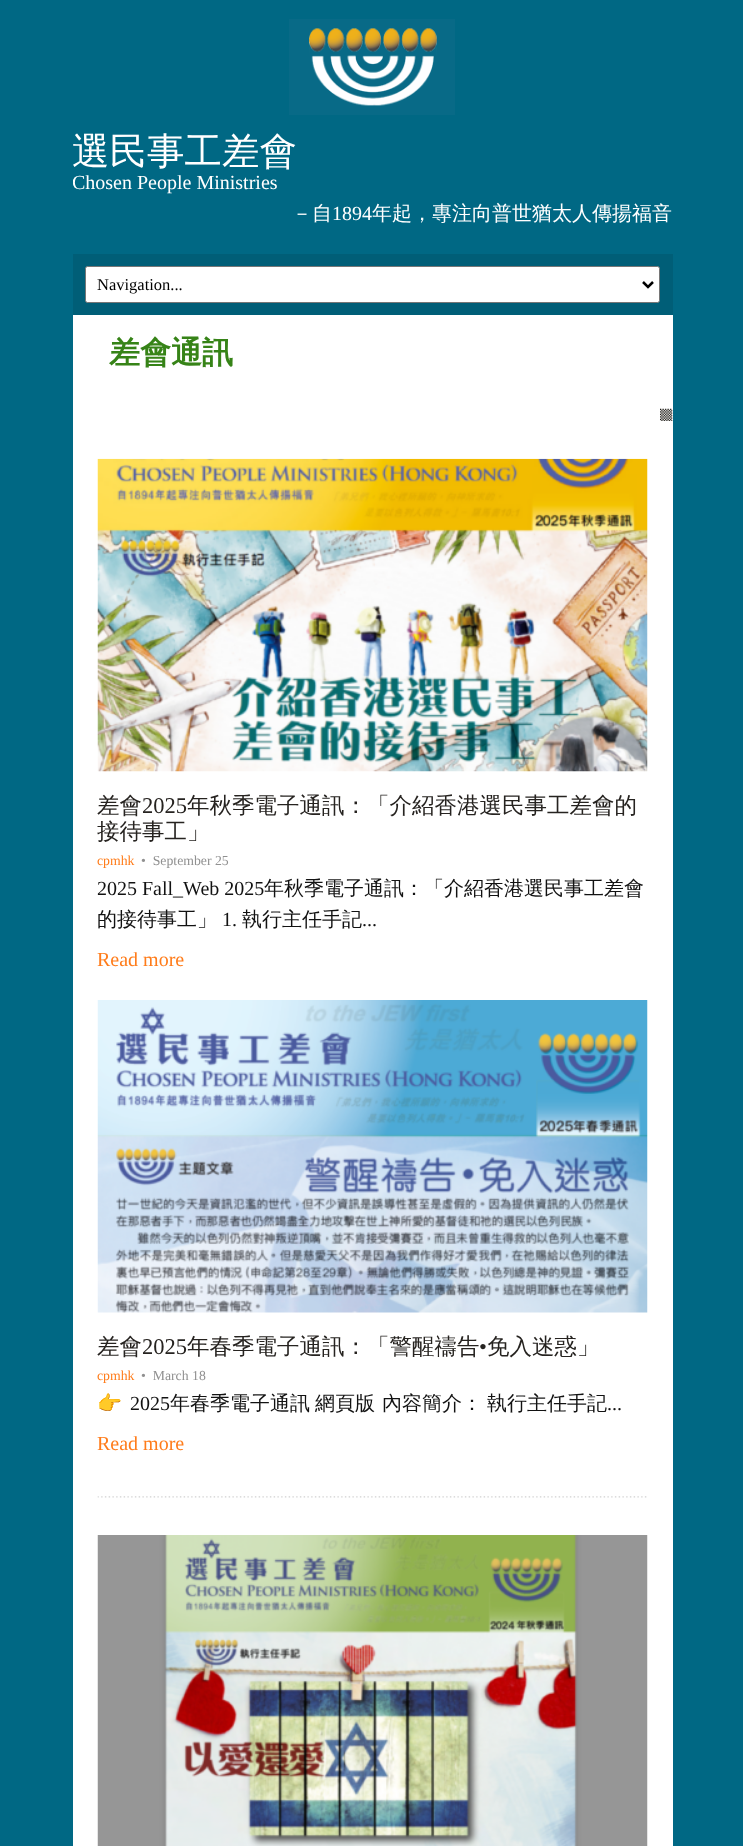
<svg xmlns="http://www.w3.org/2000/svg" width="743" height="1846">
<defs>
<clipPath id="clip1"><rect x="73" width="600" height="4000"/></clipPath>
</defs>
<rect width="100%" height="100%" fill="#006884"/>
<image x="289" y="19" width="166" height="96" href="media/1.png"/>
<text x="72" y="164" style="font-family:WenQuanYi Zen Hei;font-size:37.5px;font-weight:500;fill:#fff">選民事工差會</text>
<g clip-path="url(#clip1)">
<text x="72" y="189" style="font-family:Liberation Serif;font-size:20px;fill:#fff">Chosen People Ministries</text>
</g>
<text x="292" y="220" style="font-family:WenQuanYi Zen Hei;font-size:20px;font-weight:500;fill:#fff">－自</text>
<text x="332" y="220" style="font-family:Liberation Serif;font-size:20px;fill:#fff">1894</text>
<text x="372" y="220" style="font-family:WenQuanYi Zen Hei;font-size:20px;font-weight:500;fill:#fff">年起，專注向普世猶太人傳揚福音</text>
<rect x="73" y="254" width="600" height="61" fill="#005e77"/>
<rect x="85.5" y="266.5" width="574" height="36" rx="2" fill="#fff" stroke="#767676"/>
<path d="M643 282l5 5l5-5" fill="none" stroke="#000" stroke-width="2.5"/>
<text x="97" y="290" style="font-family:Liberation Serif;font-size:16.5px;fill:#000">Navigation...</text>
<rect x="73" y="315" width="600" height="1531" fill="#fff"/>
<image x="660" y="408" width="13" height="13" href="media/2.png"/>
<text x="109" y="363" style="font-family:WenQuanYi Zen Hei;font-size:31px;font-weight:bold;fill:#368317">差會通訊</text>
<image x="97" y="458" width="551" height="314" href="media/3.png"/>
<text x="97" y="813" style="font-family:WenQuanYi Zen Hei;font-size:22.5px;font-weight:500;fill:#262320">差會</text>
<text x="142" y="813" style="font-family:Liberation Serif;font-size:22.5px;fill:#262320">2025</text>
<text x="187" y="813" style="font-family:WenQuanYi Zen Hei;font-size:22.5px;font-weight:500;fill:#262320">年秋季電子通訊：「介紹香港選民事工差會的</text>
<text x="97" y="839" style="font-family:WenQuanYi Zen Hei;font-size:22.5px;font-weight:500;fill:#262320">接待事工」</text>
<text x="97" y="865" style="font-family:Liberation Serif;font-size:13.75px;fill:#ff7c1a">cpmhk</text>
<text x="141" y="865" style="font-family:Liberation Serif;font-size:13.75px;fill:#909090" xml:space="preserve">•  September 25</text>
<text x="97" y="895" style="font-family:Liberation Serif;font-size:20px;fill:#121212">2025 Fall_Web 2025</text>
<text x="264" y="895" style="font-family:WenQuanYi Zen Hei;font-size:20px;font-weight:500;fill:#121212">年秋季電子通訊：「介紹香港選民事工差會</text>
<text x="97" y="926" style="font-family:WenQuanYi Zen Hei;font-size:20px;font-weight:500;fill:#121212">的接待事工」</text>
<text x="222" y="926" style="font-family:Liberation Serif;font-size:20px;fill:#121212">1.</text>
<text x="242" y="926" style="font-family:WenQuanYi Zen Hei;font-size:20px;font-weight:500;fill:#121212">執行主任手記</text>
<text x="362" y="926" style="font-family:Liberation Serif;font-size:20px;fill:#121212">...</text>
<text x="97" y="966" style="font-family:Liberation Serif;font-size:20px;fill:#ff7c1a">Read more</text>
<image x="97" y="1000" width="551" height="313" href="media/4.png"/>
<text x="97" y="1354" style="font-family:WenQuanYi Zen Hei;font-size:22.5px;font-weight:500;fill:#262320">差會</text>
<text x="142" y="1354" style="font-family:Liberation Serif;font-size:22.5px;fill:#262320">2025</text>
<text x="187" y="1354" style="font-family:WenQuanYi Zen Hei;font-size:22.5px;font-weight:500;fill:#262320">年春季電子通訊：「警醒禱告</text>
<text x="479" y="1354" style="font-family:Liberation Serif;font-size:22.5px;fill:#262320">•</text>
<text x="487" y="1354" style="font-family:WenQuanYi Zen Hei;font-size:22.5px;font-weight:500;fill:#262320">免入迷惑」</text>
<text x="97" y="1380" style="font-family:Liberation Serif;font-size:13.75px;fill:#ff7c1a">cpmhk</text>
<text x="141" y="1380" style="font-family:Liberation Serif;font-size:13.75px;fill:#909090" xml:space="preserve">•  March 18</text>
<text x="97" y="1410" style="font-family:Noto Color Emoji;font-size:20px;fill:#121212">👉</text>
<text x="130" y="1410" style="font-family:Liberation Serif;font-size:20px;fill:#121212">2025</text>
<text x="170" y="1410" word-spacing="-1" style="font-family:WenQuanYi Zen Hei;font-size:20px;font-weight:500;fill:#121212">年春季電子通訊 網頁版</text>
<text x="382" y="1410" style="font-family:WenQuanYi Zen Hei;font-size:20px;font-weight:500;fill:#121212">內容簡介：</text>
<text x="487" y="1410" style="font-family:WenQuanYi Zen Hei;font-size:20px;font-weight:500;fill:#121212">執行主任手記</text>
<text x="607" y="1410" style="font-family:Liberation Serif;font-size:20px;fill:#121212">...</text>
<text x="97" y="1450" style="font-family:Liberation Serif;font-size:20px;fill:#ff7c1a">Read more</text>
<image x="97" y="1496" width="550" height="2" href="media/5.png"/>
<image x="97" y="1535" width="551" height="311" href="media/6.png"/>
</svg>
